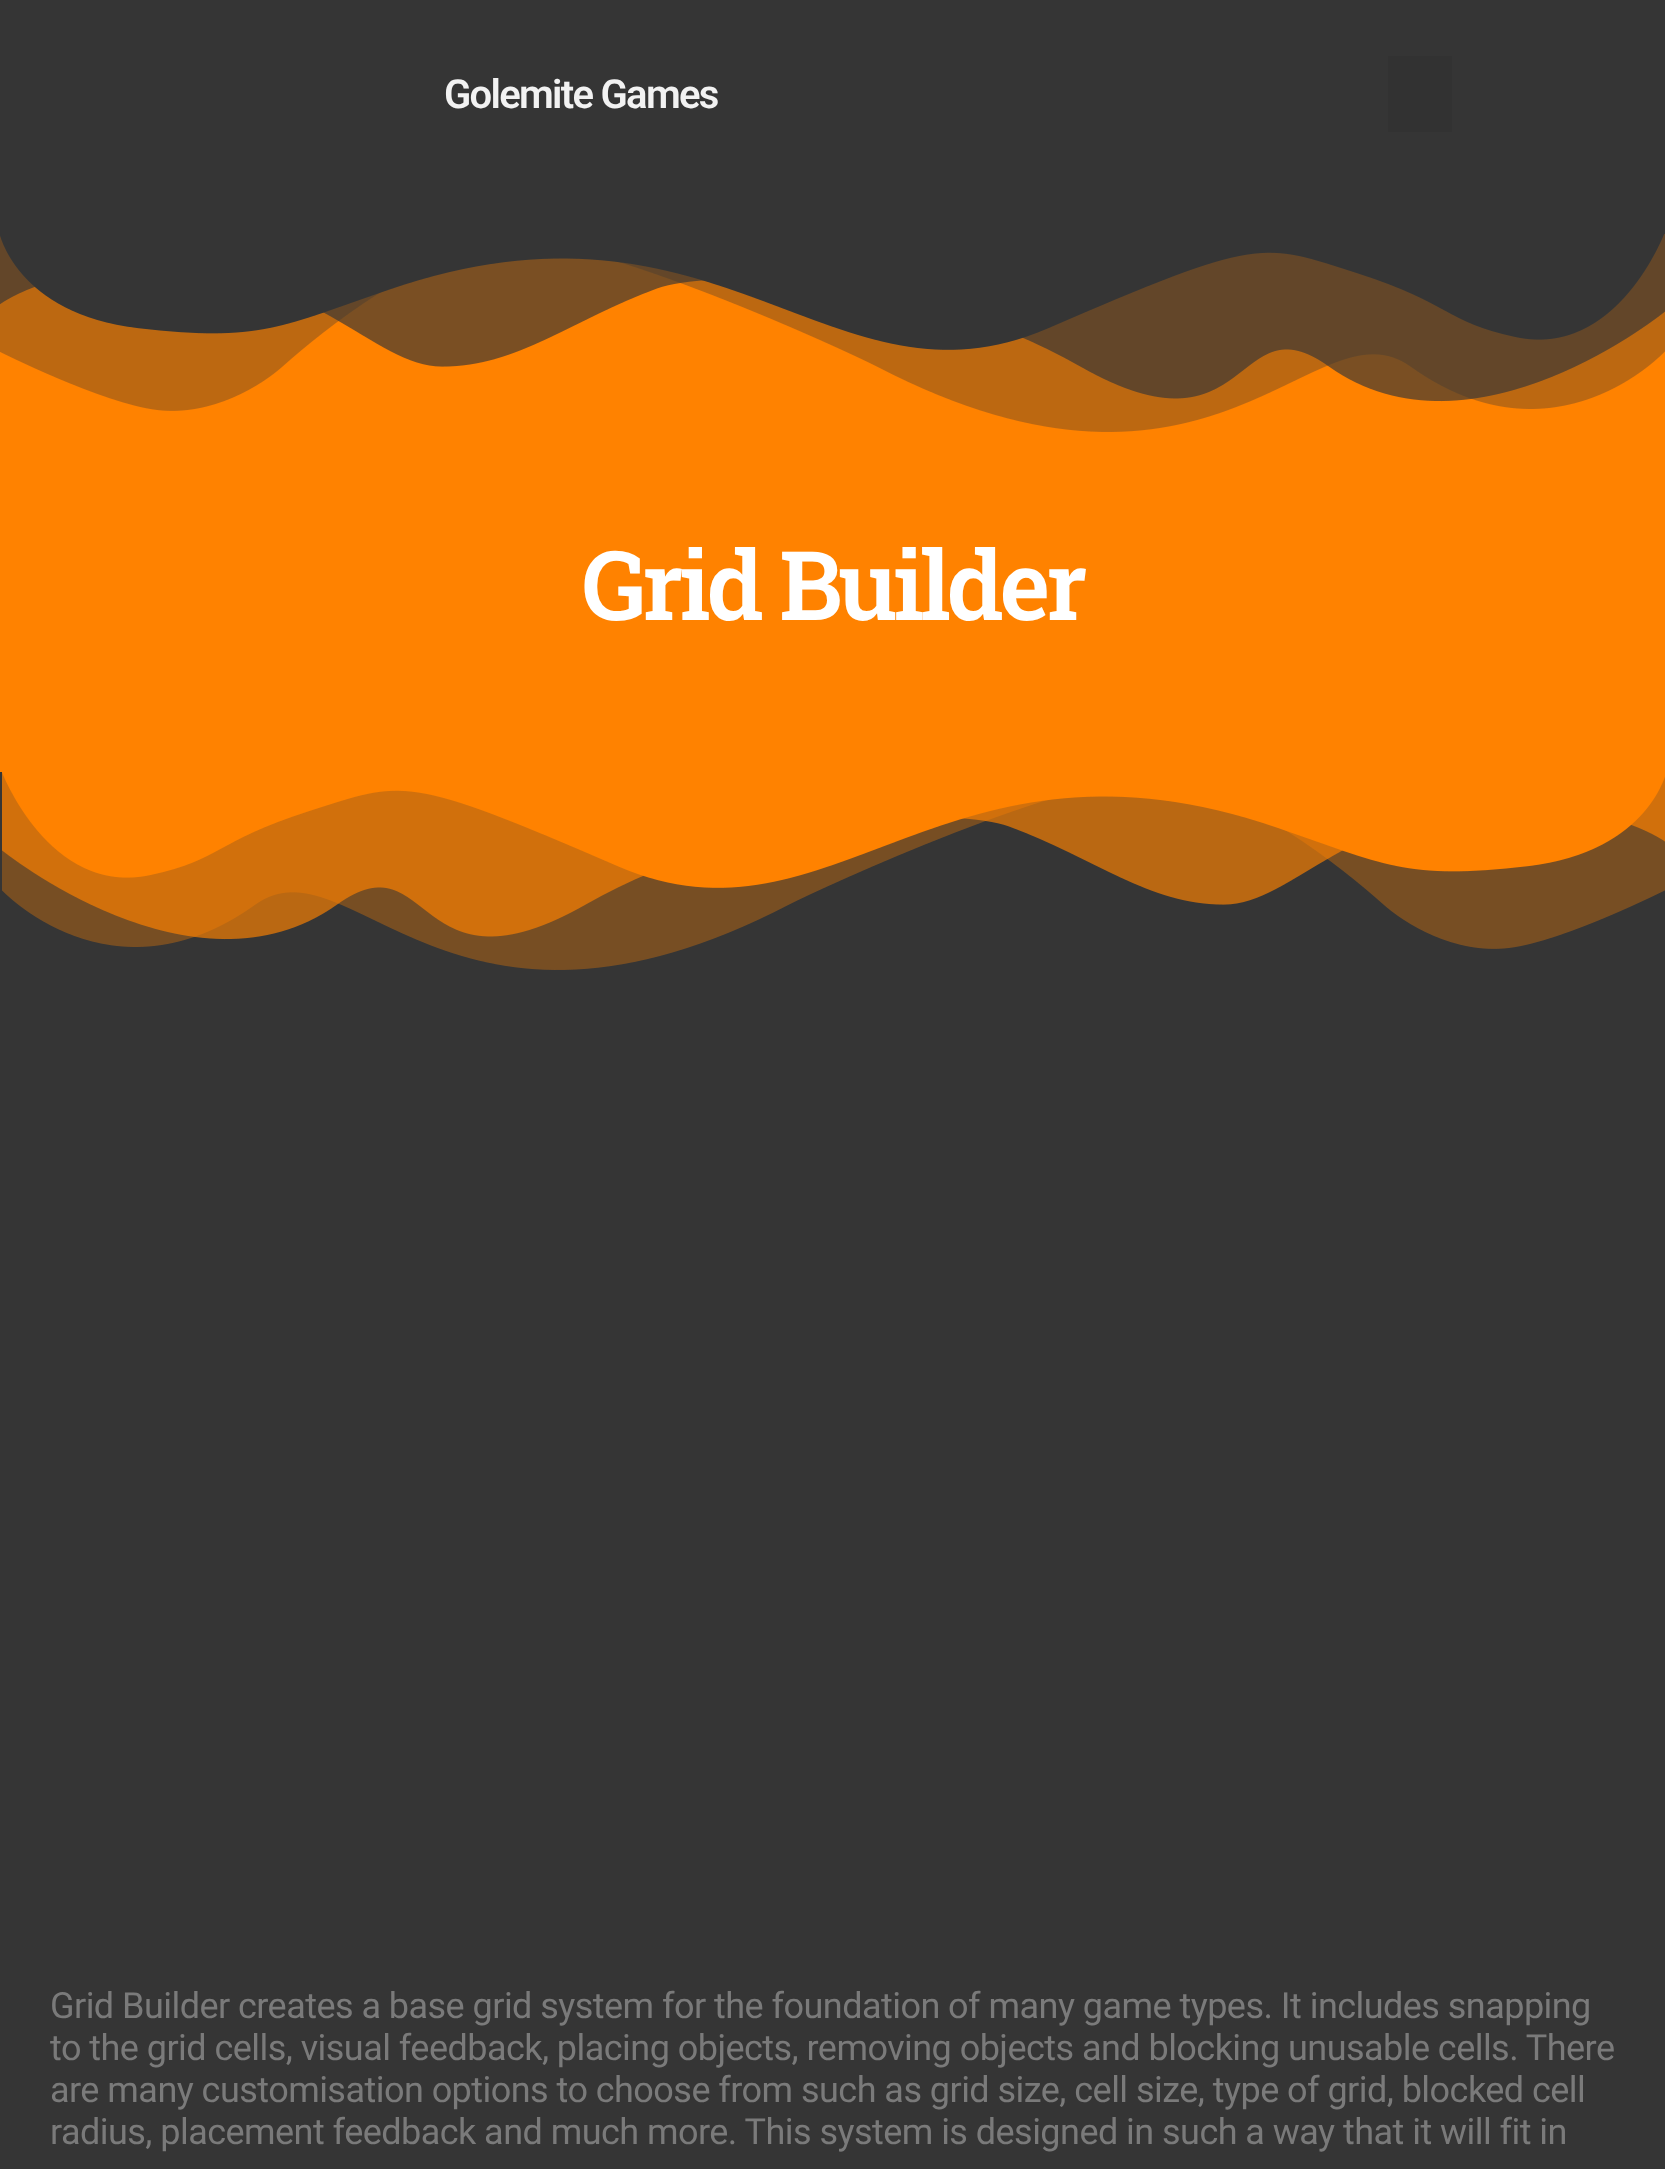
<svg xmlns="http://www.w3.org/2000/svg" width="1665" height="2169">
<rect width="100%" height="100%" fill="#ff8200"/>
<rect width="1665" height="234" fill="#353535"/>
<text x="444" y="108" style="font-family:Roboto;font-size:40px;font-weight:600;letter-spacing:-1.7px;fill:#f2f2f2">Golemite Games</text>
<rect x="1388" y="56" width="64" height="76" fill="#323232"/>
<image x="0" y="234" width="1665" height="198" href="media/1.png"/>
<text x="582" y="620" style="font-family:Roboto Slab;font-size:96px;font-weight:600;letter-spacing:-4px;fill:#fff">Grid Builder</text>
<rect y="772" width="1665" height="1397" fill="#353535"/>
<image x="2" y="772" width="1663" height="198" href="media/2.png"/>
<text x="50" y="2018" style="font-family:Roboto;font-size:36px;letter-spacing:-0.54px;fill:#7a7a7a">Grid Builder creates a base grid system for the foundation of many game types. It includes snapping</text>
<text x="50" y="2060" style="font-family:Roboto;font-size:36px;letter-spacing:-0.54px;fill:#7a7a7a">to the grid cells, visual feedback, placing objects, removing objects and blocking unusable cells. There</text>
<text x="50" y="2102" style="font-family:Roboto;font-size:36px;letter-spacing:-0.54px;fill:#7a7a7a">are many customisation options to choose from such as grid size, cell size, type of grid, blocked cell</text>
<text x="50" y="2144" style="font-family:Roboto;font-size:36px;letter-spacing:-0.54px;fill:#7a7a7a">radius, placement feedback and much more. This system is designed in such a way that it will fit in</text>
</svg>
